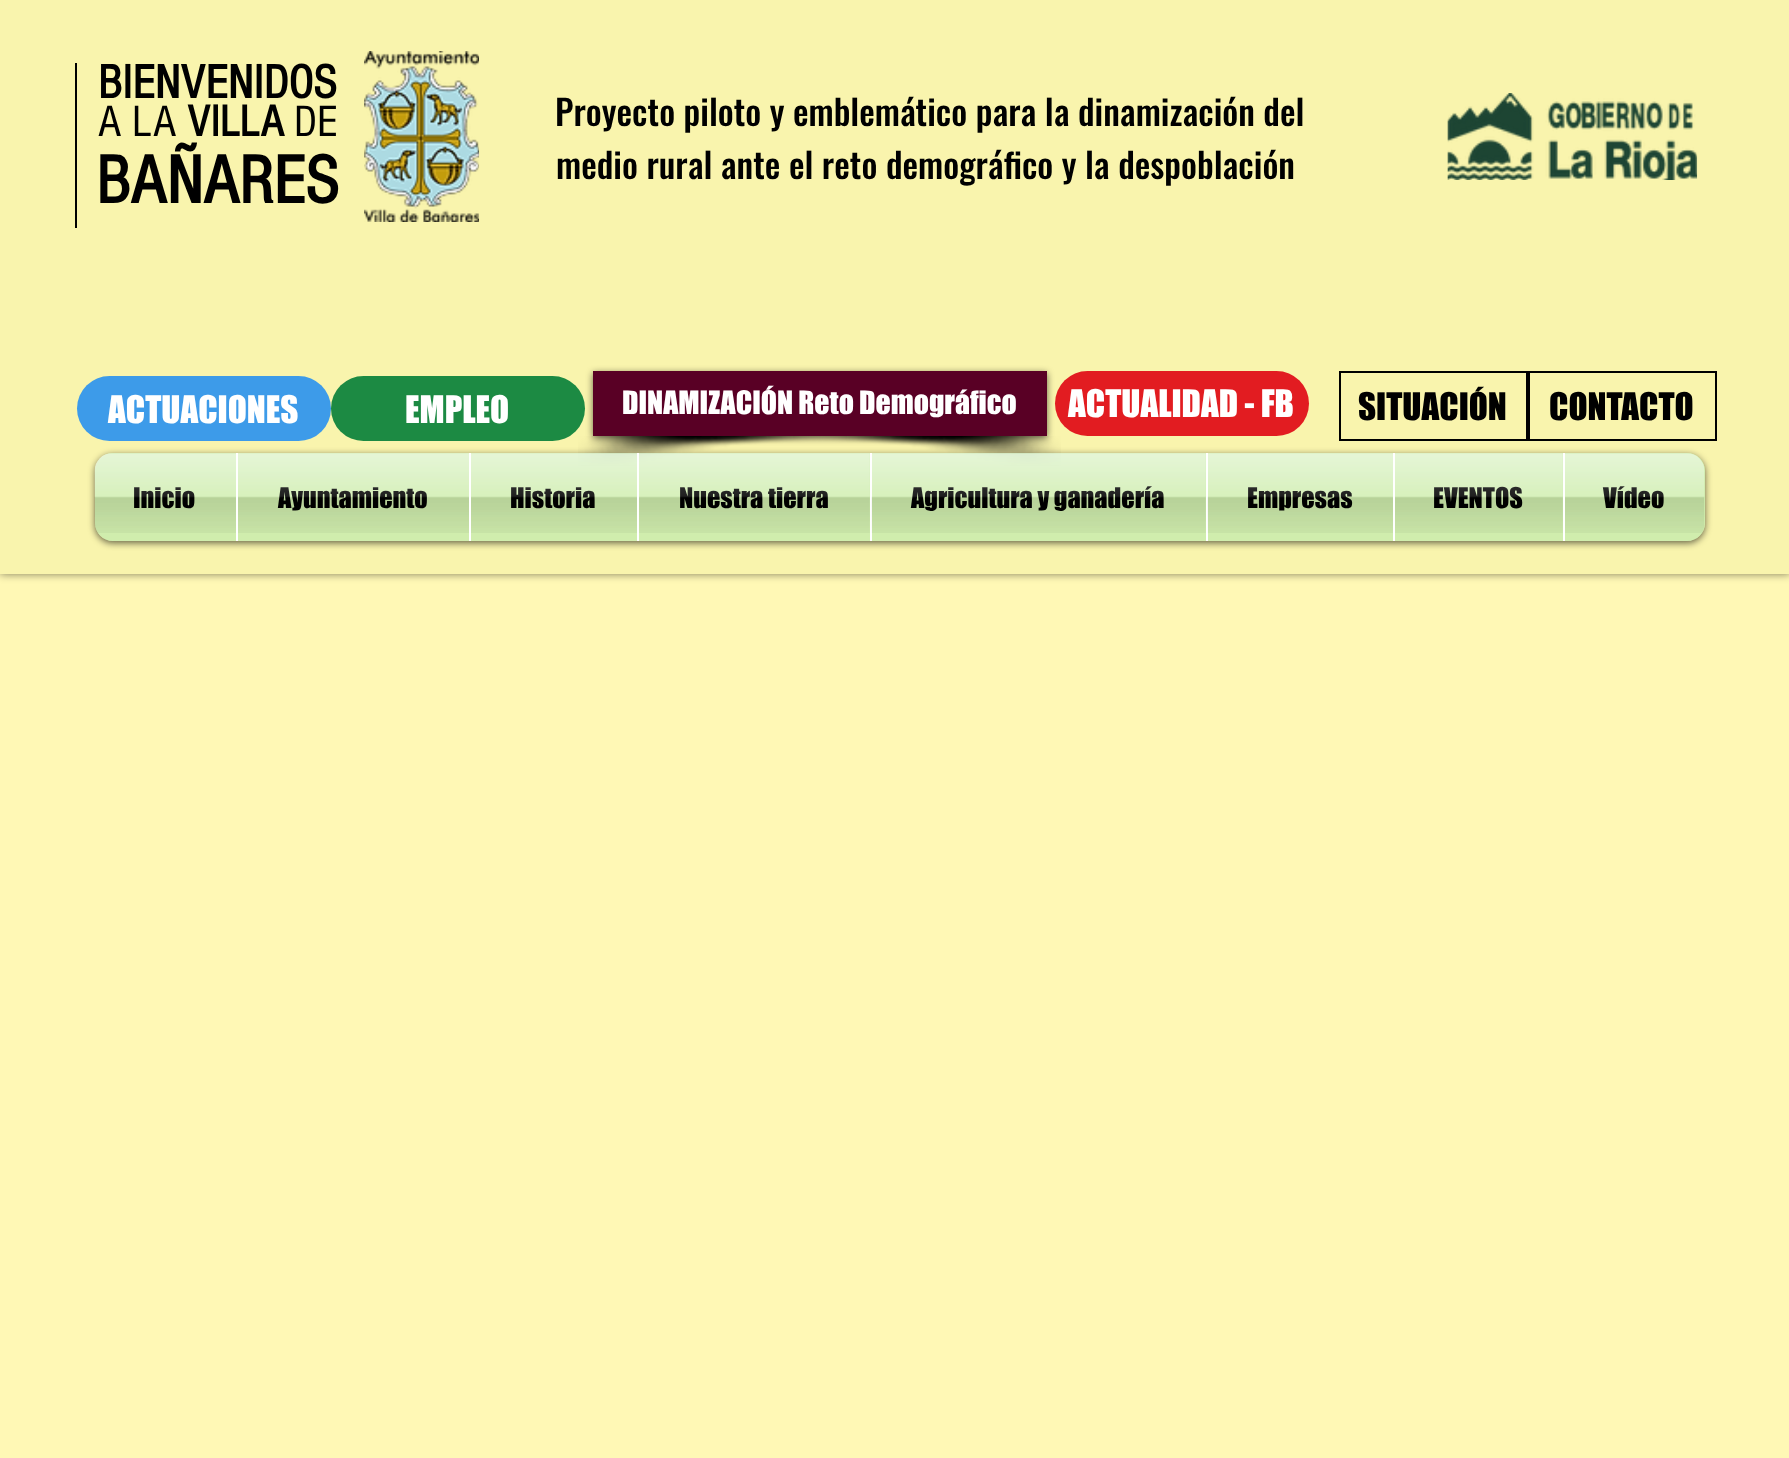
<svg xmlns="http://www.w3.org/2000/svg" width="1789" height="1458">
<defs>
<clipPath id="clip1"><path d="M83 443h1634v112h-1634zm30 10h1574c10 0 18 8 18 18v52c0 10-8 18-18 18h-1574c-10 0-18-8-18-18v-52c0-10 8-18 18-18z" clip-rule="evenodd"/></clipPath>
</defs>
<rect width="100%" height="100%" fill="#fff8b5"/>
<rect width="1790" height="574" fill="#00000080" filter="blur(4.5px)"/>
<rect width="1789" height="574" fill="#f9f4ad"/>
<rect x="75" y="63" width="2" height="165" fill="#000"/>
<text x="98" y="98" style="font-family:'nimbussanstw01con';font-size:49px;font-weight:bold;fill:#000">BIENVENIDOS</text>
<text x="98" y="136" style="font-family:'nimbussanstw01con';font-size:45.5px;fill:#000">A LA</text>
<text x="187" y="136" style="font-family:'nimbussanstw01con';font-size:45.5px;font-weight:bold;fill:#000">VILLA</text>
<text x="294" y="136" style="font-family:'nimbussanstw01con';font-size:45.5px;fill:#000">DE</text>
<text x="96" y="203" style="font-family:'nimbussanstw01con';font-size:70px;font-weight:bold;fill:#000">BAÑARES</text>
<image x="364" y="51" width="116" height="171" href="media/1.png"/>
<text x="555" y="126" style="font-family:Oswald;font-size:35px;font-weight:500;fill:#000">Proyecto piloto y emblemático para la dinamización del</text>
<text x="556" y="179" style="font-family:Oswald;font-size:35px;font-weight:500;fill:#000">medio rural ante el reto demográfico y la despoblación</text>
<image x="1447" y="93" width="251" height="87" href="media/2.png"/>
<rect x="77" y="376" width="254" height="65" rx="32.5" fill="#3d9be9"/>
<text x="108" y="423" style="font-family:'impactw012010';font-size:35px;fill:#fff">ACTUACIONES</text>
<rect x="331" y="376" width="254" height="65" rx="32.5" fill="#1c8a43"/>
<text x="405" y="423" style="font-family:'impactw012010';font-size:35px;fill:#fff">EMPLEO</text>
<image x="578" y="436" width="269" height="30" href="media/3.png"/>
<image x="793" y="436" width="268" height="30" href="media/4.png"/>
<rect x="593" y="373" width="454" height="65" fill="#00000099" filter="blur(3.5px)"/>
<rect x="593" y="371" width="454" height="65" fill="#590025"/>
<text x="622" y="414" style="font-family:'impactw012010';font-size:29.75px;fill:#fff">DINAMIZACIÓN Reto Demográfico</text>
<rect x="1055" y="371" width="254" height="65" rx="32.5" fill="#e21c21"/>
<text x="1068" y="417" style="font-family:'impactw012010';font-size:35px;fill:#fff">ACTUALIDAD - FB</text>
<rect x="1340" y="372" width="187" height="68" fill="none" stroke="#000" stroke-width="2"/>
<text x="1358" y="420" style="font-family:'impactw012010';font-size:35px;fill:#000">SITUACIÓN</text>
<rect x="1529" y="372" width="187" height="68" fill="none" stroke="#000" stroke-width="2"/>
<text x="1549" y="420" style="font-family:'impactw012010';font-size:35px;fill:#000">CONTACTO</text>
<g clip-path="url(#clip1)">
<rect x="95" y="455" width="1610" height="88" rx="18" fill="#00000099" filter="blur(3.5px)"/>
</g>
<rect x="95" y="453" width="1610" height="88" rx="18" fill="#b3e8af5c"/>
<image x="94" y="453" width="1611" height="80" href="media/5.png"/>
<path d="M113 453h123v88h-123c-10 0-18-8-18-18v-52c0-10 8-18 18-18z" fill="#b3e8af5c"/>
<text x="133" y="508" style="font-family:'impactw012010';font-size:26.25px;fill:#000">Inicio</text>
<image x="94" y="453" width="142" height="80" href="media/6.png"/>
<rect x="238" y="453" width="231" height="88" fill="#b3e8af5c"/>
<rect x="236" y="453" width="2" height="88" fill="#fff"/>
<text x="278" y="508" style="font-family:'impactw012010';font-size:26.25px;fill:#000">Ayuntamiento</text>
<image x="238" y="453" width="231" height="80" href="media/7.png"/>
<rect x="471" y="453" width="166" height="88" fill="#b3e8af5c"/>
<rect x="469" y="453" width="2" height="88" fill="#fff"/>
<text x="510" y="508" style="font-family:'impactw012010';font-size:26.25px;fill:#000">Historia</text>
<image x="471" y="453" width="166" height="80" href="media/8.png"/>
<rect x="639" y="453" width="231" height="88" fill="#b3e8af5c"/>
<rect x="637" y="453" width="2" height="88" fill="#fff"/>
<text x="679" y="508" style="font-family:'impactw012010';font-size:26.25px;fill:#000">Nuestra tierra</text>
<image x="639" y="453" width="231" height="80" href="media/9.png"/>
<rect x="872" y="453" width="334" height="88" fill="#b3e8af5c"/>
<rect x="870" y="453" width="2" height="88" fill="#fff"/>
<text x="911" y="508" style="font-family:'impactw012010';font-size:26.25px;fill:#000">Agricultura y ganadería</text>
<image x="871" y="453" width="335" height="80" href="media/10.png"/>
<rect x="1208" y="453" width="185" height="88" fill="#b3e8af5c"/>
<rect x="1206" y="453" width="2" height="88" fill="#fff"/>
<text x="1247" y="508" style="font-family:'impactw012010';font-size:26.25px;fill:#000">Empresas</text>
<image x="1207" y="453" width="186" height="80" href="media/11.png"/>
<rect x="1395" y="453" width="168" height="88" fill="#b3e8af5c"/>
<rect x="1393" y="453" width="2" height="88" fill="#fff"/>
<text x="1433" y="508" style="font-family:'impactw012010';font-size:26.25px;fill:#000">EVENTOS</text>
<image x="1395" y="453" width="168" height="80" href="media/12.png"/>
<path d="M1563 453h124c10 0 18 8 18 18v52c0 10-8 18-18 18h-124z" fill="#b3e8af5c"/>
<rect x="1563" y="453" width="2" height="88" fill="#fff"/>
<text x="1603" y="508" style="font-family:'impactw012010';font-size:26.25px;fill:#000">Vídeo</text>
<image x="1565" y="453" width="140" height="80" href="media/13.png"/>
</svg>
